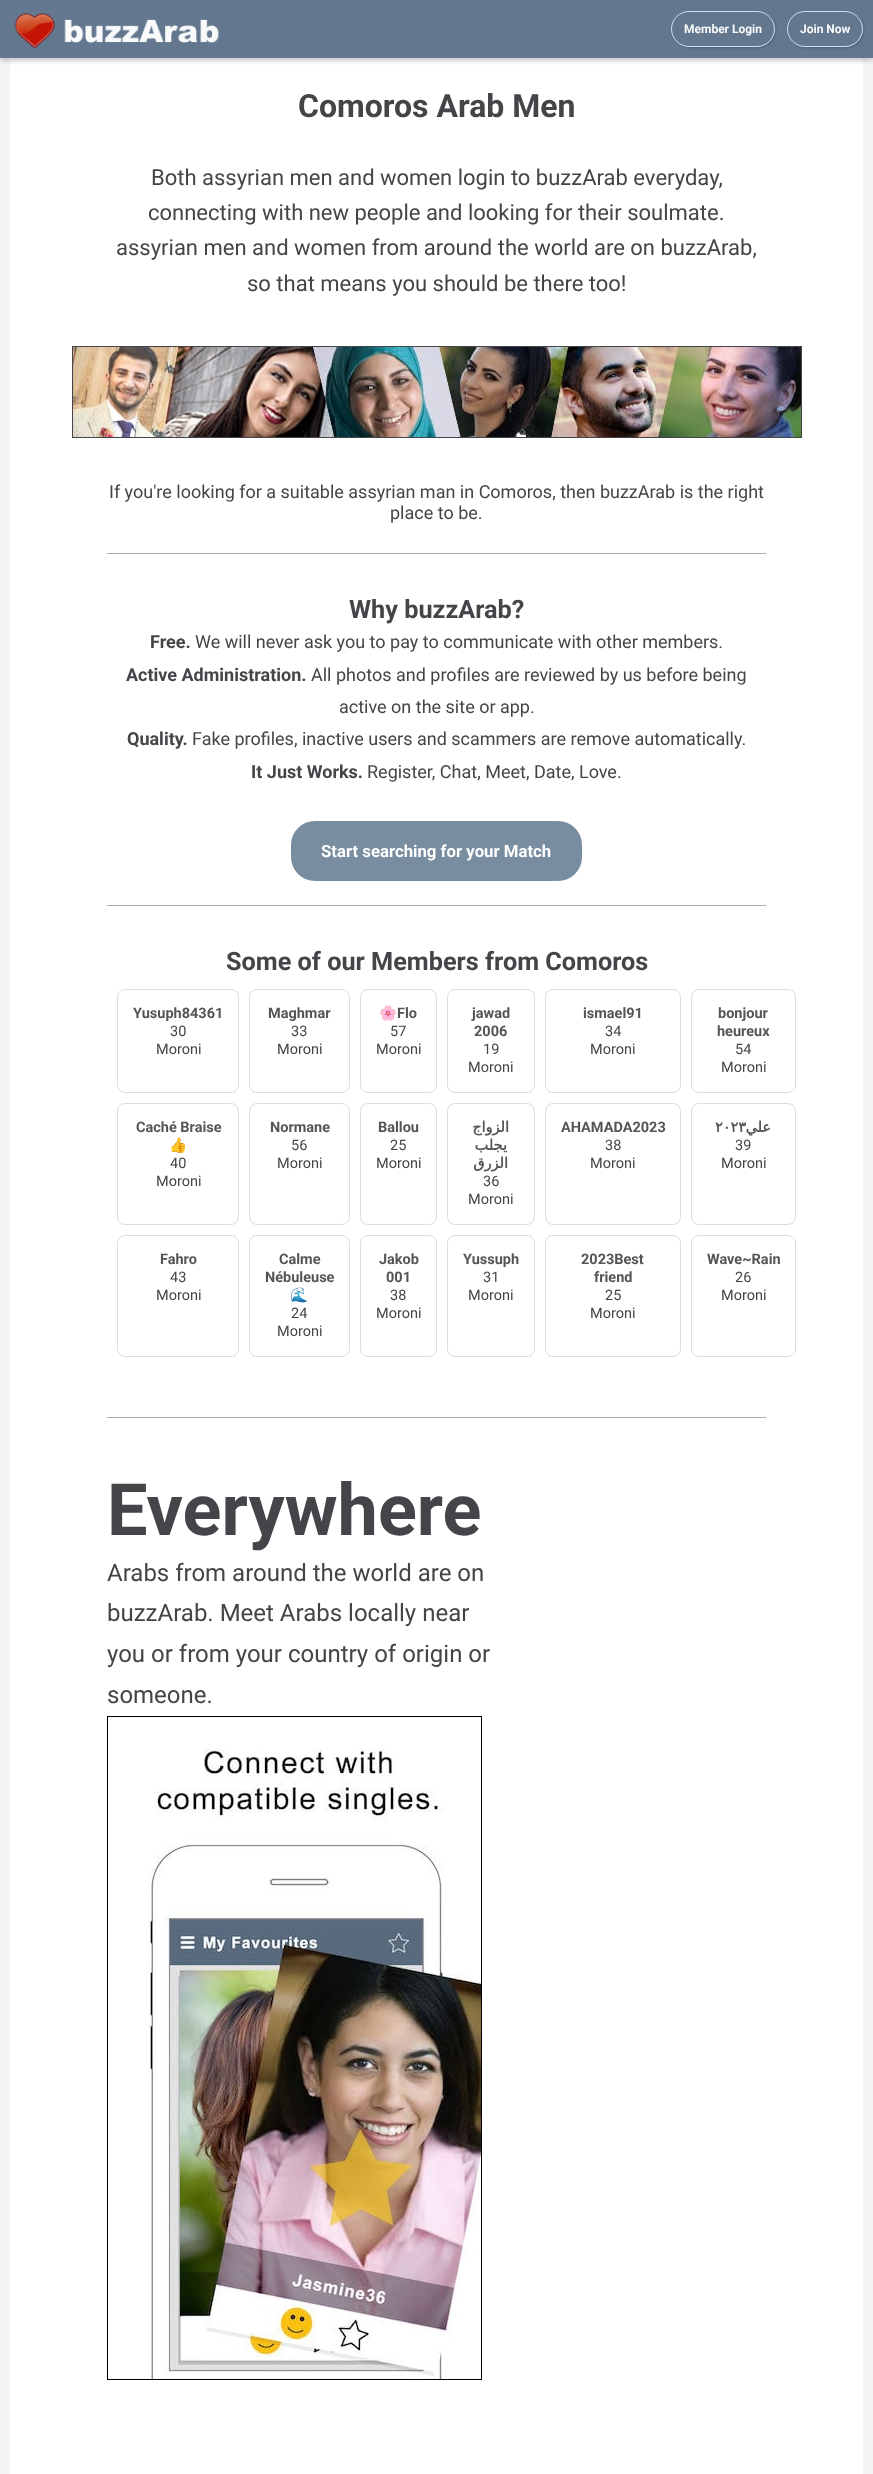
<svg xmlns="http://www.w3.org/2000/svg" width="873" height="2474">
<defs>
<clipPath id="clip1"><rect x="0" y="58" width="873" height="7"/></clipPath>
<clipPath id="clip2"><rect x="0" y="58" width="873" height="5"/></clipPath>
<clipPath id="clip3"><path d="M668 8h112v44h-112zm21 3h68c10 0 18 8 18 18c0 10-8 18-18 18h-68c-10 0-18-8-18-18c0-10 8-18 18-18z" clip-rule="evenodd"/></clipPath>
<clipPath id="clip4"><path d="M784 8h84v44h-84zm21 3h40c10 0 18 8 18 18c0 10-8 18-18 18h-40c-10 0-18-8-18-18c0-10 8-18 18-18z" clip-rule="evenodd"/></clipPath>
</defs>
<rect width="100%" height="100%" fill="#f5f5f5"/>
<rect x="10" y="25" width="853" height="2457" rx="8" fill="#fff"/>
<g clip-path="url(#clip1)">
<rect y="2" width="873" height="58" fill="#0000001f" filter="blur(5px)"/>
</g>
<g clip-path="url(#clip2)">
<rect y="2" width="873" height="58" fill="#00000026" filter="blur(2.5px)"/>
</g>
<rect width="873" height="58" fill="#5d728af5"/>
<image x="14" y="13" width="205" height="36" href="media/1.png"/>
<g clip-path="url(#clip3)">
<rect x="672" y="12" width="104" height="36" rx="18" fill="#00000030" filter="blur(1px)"/>
</g>
<rect x="671.5" y="11.5" width="103" height="35" rx="17.5" fill="none" stroke="#d5e3f1f5"/>
<text x="684" y="33" style="font-family:Roboto;font-size:12px;font-weight:bold;fill:#f9fafb">Member Login</text>
<g clip-path="url(#clip4)">
<rect x="788" y="12" width="76" height="36" rx="18" fill="#00000030" filter="blur(1px)"/>
</g>
<rect x="787.5" y="11.5" width="75" height="35" rx="17.5" fill="none" stroke="#d5e3f1f5"/>
<text x="800" y="33" style="font-family:Roboto;font-size:12px;font-weight:bold;fill:#f9fafb">Join Now</text>
<text x="298" y="117" style="font-family:Roboto;font-size:32px;font-weight:bold;fill:#434548">Comoros Arab Men</text>
<text x="151" y="185" style="font-family:Roboto;font-size:22px;fill:#434548">Both assyrian men and women login to buzzArab everyday,</text>
<text x="148" y="220" style="font-family:Roboto;font-size:22px;fill:#434548">connecting with new people and looking for their soulmate.</text>
<text x="116" y="255" style="font-family:Roboto;font-size:22px;fill:#434548">assyrian men and women from around the world are on buzzArab,</text>
<text x="247" y="291" style="font-family:Roboto;font-size:22px;fill:#434548">so that means you should be there too!</text>
<rect x="72.5" y="346.5" width="729" height="91" fill="none" stroke="#434548"/>
<image x="73" y="347" width="728" height="90" href="media/2.png"/>
<text x="109" y="498" style="font-family:Roboto;font-size:18px;fill:#434548">If you're looking for a suitable assyrian man in Comoros, then buzzArab is the right</text>
<text x="390" y="519" style="font-family:Roboto;font-size:18px;fill:#434548">place to be.</text>
<rect x="107" y="553" width="659" height="1" fill="#aaa"/>
<text x="349" y="618" style="font-family:Roboto;font-size:25.25px;font-weight:bold;fill:#434548">Why buzzArab?</text>
<text x="150" y="648" style="font-family:Roboto;font-size:18px;font-weight:bold;fill:#434548">Free.</text>
<text x="195" y="648" style="font-family:Roboto;font-size:18px;fill:#434548">We will never ask you to pay to communicate with other members.</text>
<text x="126" y="681" style="font-family:Roboto;font-size:18px;font-weight:bold;fill:#434548">Active Administration.</text>
<text x="311" y="681" style="font-family:Roboto;font-size:18px;fill:#434548">All photos and profiles are reviewed by us before being</text>
<text x="339" y="713" style="font-family:Roboto;font-size:18px;fill:#434548">active on the site or app.</text>
<text x="127" y="745" style="font-family:Roboto;font-size:18px;font-weight:bold;fill:#434548">Quality.</text>
<text x="192" y="745" style="font-family:Roboto;font-size:18px;fill:#434548">Fake profiles, inactive users and scammers are remove automatically.</text>
<text x="251" y="778" style="font-family:Roboto;font-size:18px;font-weight:bold;fill:#434548">It Just Works.</text>
<text x="367" y="778" style="font-family:Roboto;font-size:18px;fill:#434548">Register, Chat, Meet, Date, Love.</text>
<rect x="291" y="821" width="291" height="60" rx="24" fill="#798da0"/>
<text x="321" y="857" style="font-family:Roboto;font-size:16.75px;font-weight:bold;fill:#fff">Start searching for your Match</text>
<rect x="107" y="905" width="659" height="1" fill="#aaa"/>
<text x="226" y="970" style="font-family:Roboto;font-size:25.25px;font-weight:bold;fill:#434548">Some of our Members from Comoros</text>
<rect x="117.5" y="989.5" width="121" height="103" rx="7.5" fill="none" stroke="#ddd"/>
<text x="133" y="1018" style="font-family:Roboto;font-size:14.5px;font-weight:bold;fill:#555">Yusuph84361</text>
<text x="170" y="1036" style="font-family:Roboto;font-size:14.5px;fill:#434548">30</text>
<text x="156" y="1054" style="font-family:Roboto;font-size:14.5px;fill:#434548">Moroni</text>
<rect x="249.5" y="989.5" width="100" height="103" rx="7.5" fill="none" stroke="#ddd"/>
<text x="268" y="1018" style="font-family:Roboto;font-size:14.5px;font-weight:bold;fill:#555">Maghmar</text>
<text x="291" y="1036" style="font-family:Roboto;font-size:14.5px;fill:#434548">33</text>
<text x="277" y="1054" style="font-family:Roboto;font-size:14.5px;fill:#434548">Moroni</text>
<rect x="360.5" y="989.5" width="76" height="103" rx="7.5" fill="none" stroke="#ddd"/>
<text x="379" y="1018" style="font-family:Noto Color Emoji;font-size:14.5px;font-weight:bold;fill:#555">🌸</text>
<text x="397" y="1018" style="font-family:Roboto;font-size:14.5px;font-weight:bold;fill:#555">Flo</text>
<text x="390" y="1036" style="font-family:Roboto;font-size:14.5px;fill:#434548">57</text>
<text x="376" y="1054" style="font-family:Roboto;font-size:14.5px;fill:#434548">Moroni</text>
<rect x="447.5" y="989.5" width="87" height="103" rx="7.5" fill="none" stroke="#ddd"/>
<text x="472" y="1018" style="font-family:Roboto;font-size:14.5px;font-weight:bold;fill:#555">jawad</text>
<text x="474" y="1036" style="font-family:Roboto;font-size:14.5px;font-weight:bold;fill:#555">2006</text>
<text x="483" y="1054" style="font-family:Roboto;font-size:14.5px;fill:#434548">19</text>
<text x="468" y="1072" style="font-family:Roboto;font-size:14.5px;fill:#434548">Moroni</text>
<rect x="545.5" y="989.5" width="135" height="103" rx="7.5" fill="none" stroke="#ddd"/>
<text x="583" y="1018" style="font-family:Roboto;font-size:14.5px;font-weight:bold;fill:#555">ismael91</text>
<text x="605" y="1036" style="font-family:Roboto;font-size:14.5px;fill:#434548">34</text>
<text x="590" y="1054" style="font-family:Roboto;font-size:14.5px;fill:#434548">Moroni</text>
<rect x="691.5" y="989.5" width="104" height="103" rx="7.5" fill="none" stroke="#ddd"/>
<text x="718" y="1018" style="font-family:Roboto;font-size:14.5px;font-weight:bold;fill:#555">bonjour</text>
<text x="717" y="1036" style="font-family:Roboto;font-size:14.5px;font-weight:bold;fill:#555">heureux</text>
<text x="735" y="1054" style="font-family:Roboto;font-size:14.5px;fill:#434548">54</text>
<text x="721" y="1072" style="font-family:Roboto;font-size:14.5px;fill:#434548">Moroni</text>
<rect x="117.5" y="1103.5" width="121" height="121" rx="7.5" fill="none" stroke="#ddd"/>
<text x="136" y="1132" style="font-family:Roboto;font-size:14.5px;font-weight:bold;fill:#555">Caché Braise</text>
<text x="169" y="1150" style="font-family:Noto Color Emoji;font-size:14.5px;font-weight:bold;fill:#555">👍</text>
<text x="170" y="1168" style="font-family:Roboto;font-size:14.5px;fill:#434548">40</text>
<text x="156" y="1186" style="font-family:Roboto;font-size:14.5px;fill:#434548">Moroni</text>
<rect x="249.5" y="1103.5" width="100" height="121" rx="7.5" fill="none" stroke="#ddd"/>
<text x="270" y="1132" style="font-family:Roboto;font-size:14.5px;font-weight:bold;fill:#555">Normane</text>
<text x="291" y="1150" style="font-family:Roboto;font-size:14.5px;fill:#434548">56</text>
<text x="277" y="1168" style="font-family:Roboto;font-size:14.5px;fill:#434548">Moroni</text>
<rect x="360.5" y="1103.5" width="76" height="121" rx="7.5" fill="none" stroke="#ddd"/>
<text x="378" y="1132" style="font-family:Roboto;font-size:14.5px;font-weight:bold;fill:#555">Ballou</text>
<text x="390" y="1150" style="font-family:Roboto;font-size:14.5px;fill:#434548">25</text>
<text x="376" y="1168" style="font-family:Roboto;font-size:14.5px;fill:#434548">Moroni</text>
<rect x="447.5" y="1103.5" width="87" height="121" rx="7.5" fill="none" stroke="#ddd"/>
<text x="509" y="1132" style="font-family:DejaVu Sans;font-size:14.5px;font-weight:bold;direction:rtl;fill:#555">الزواج</text>
<text x="507" y="1150" style="font-family:DejaVu Sans;font-size:14.5px;font-weight:bold;direction:rtl;fill:#555">يجلب</text>
<text x="508" y="1168" style="font-family:DejaVu Sans;font-size:14.5px;font-weight:bold;direction:rtl;fill:#555">الزرق</text>
<text x="483" y="1186" style="font-family:Roboto;font-size:14.5px;fill:#434548">36</text>
<text x="468" y="1204" style="font-family:Roboto;font-size:14.5px;fill:#434548">Moroni</text>
<rect x="545.5" y="1103.5" width="135" height="121" rx="7.5" fill="none" stroke="#ddd"/>
<text x="561" y="1132" style="font-family:Roboto;font-size:14.5px;font-weight:bold;fill:#555">AHAMADA2023</text>
<text x="605" y="1150" style="font-family:Roboto;font-size:14.5px;fill:#434548">38</text>
<text x="590" y="1168" style="font-family:Roboto;font-size:14.5px;fill:#434548">Moroni</text>
<rect x="691.5" y="1103.5" width="104" height="121" rx="7.5" fill="none" stroke="#ddd"/>
<text x="715" y="1132" style="font-family:DejaVu Sans;font-size:14.5px;font-weight:bold;fill:#555">٢٠٢٣</text>
<text x="771" y="1132" style="font-family:DejaVu Sans;font-size:14.5px;font-weight:bold;direction:rtl;fill:#555">علي</text>
<text x="735" y="1150" style="font-family:Roboto;font-size:14.5px;fill:#434548">39</text>
<text x="721" y="1168" style="font-family:Roboto;font-size:14.5px;fill:#434548">Moroni</text>
<rect x="117.5" y="1235.5" width="121" height="121" rx="7.5" fill="none" stroke="#ddd"/>
<text x="160" y="1264" style="font-family:Roboto;font-size:14.5px;font-weight:bold;fill:#555">Fahro</text>
<text x="170" y="1282" style="font-family:Roboto;font-size:14.5px;fill:#434548">43</text>
<text x="156" y="1300" style="font-family:Roboto;font-size:14.5px;fill:#434548">Moroni</text>
<rect x="249.5" y="1235.5" width="100" height="121" rx="7.5" fill="none" stroke="#ddd"/>
<text x="279" y="1264" style="font-family:Roboto;font-size:14.5px;font-weight:bold;fill:#555">Calme</text>
<text x="265" y="1282" style="font-family:Roboto;font-size:14.5px;font-weight:bold;fill:#555">Nébuleuse</text>
<text x="290" y="1300" style="font-family:Noto Color Emoji;font-size:14.5px;font-weight:bold;fill:#555">🌊</text>
<text x="291" y="1318" style="font-family:Roboto;font-size:14.5px;fill:#434548">24</text>
<text x="277" y="1336" style="font-family:Roboto;font-size:14.5px;fill:#434548">Moroni</text>
<rect x="360.5" y="1235.5" width="76" height="121" rx="7.5" fill="none" stroke="#ddd"/>
<text x="379" y="1264" style="font-family:Roboto;font-size:14.5px;font-weight:bold;fill:#555">Jakob</text>
<text x="386" y="1282" style="font-family:Roboto;font-size:14.5px;font-weight:bold;fill:#555">001</text>
<text x="390" y="1300" style="font-family:Roboto;font-size:14.5px;fill:#434548">38</text>
<text x="376" y="1318" style="font-family:Roboto;font-size:14.5px;fill:#434548">Moroni</text>
<rect x="447.5" y="1235.5" width="87" height="121" rx="7.5" fill="none" stroke="#ddd"/>
<text x="463" y="1264" style="font-family:Roboto;font-size:14.5px;font-weight:bold;fill:#555">Yussuph</text>
<text x="483" y="1282" style="font-family:Roboto;font-size:14.5px;fill:#434548">31</text>
<text x="468" y="1300" style="font-family:Roboto;font-size:14.5px;fill:#434548">Moroni</text>
<rect x="545.5" y="1235.5" width="135" height="121" rx="7.5" fill="none" stroke="#ddd"/>
<text x="581" y="1264" style="font-family:Roboto;font-size:14.5px;font-weight:bold;fill:#555">2023Best</text>
<text x="594" y="1282" style="font-family:Roboto;font-size:14.5px;font-weight:bold;fill:#555">friend</text>
<text x="605" y="1300" style="font-family:Roboto;font-size:14.5px;fill:#434548">25</text>
<text x="590" y="1318" style="font-family:Roboto;font-size:14.5px;fill:#434548">Moroni</text>
<rect x="691.5" y="1235.5" width="104" height="121" rx="7.5" fill="none" stroke="#ddd"/>
<text x="707" y="1264" style="font-family:Roboto;font-size:14.5px;font-weight:bold;fill:#555">Wave~Rain</text>
<text x="735" y="1282" style="font-family:Roboto;font-size:14.5px;fill:#434548">26</text>
<text x="721" y="1300" style="font-family:Roboto;font-size:14.5px;fill:#434548">Moroni</text>
<rect x="107" y="1417" width="659" height="1" fill="#aaa"/>
<text x="107" y="1535" style="font-family:Roboto;font-size:72px;font-weight:bold;fill:#434548">Everywhere</text>
<text x="107" y="1581" style="font-family:Roboto;font-size:24px;fill:#434548">Arabs from around the world are on</text>
<text x="107" y="1621" style="font-family:Roboto;font-size:24px;fill:#434548">buzzArab. Meet Arabs locally near</text>
<text x="107" y="1662" style="font-family:Roboto;font-size:24px;fill:#434548">you or from your country of origin or</text>
<text x="107" y="1703" style="font-family:Roboto;font-size:24px;fill:#434548">someone.</text>
<rect x="107.5" y="1716.5" width="374" height="663" fill="none" stroke="#000"/>
<image x="148" y="1749" width="333" height="630" href="media/3.png"/>
</svg>
